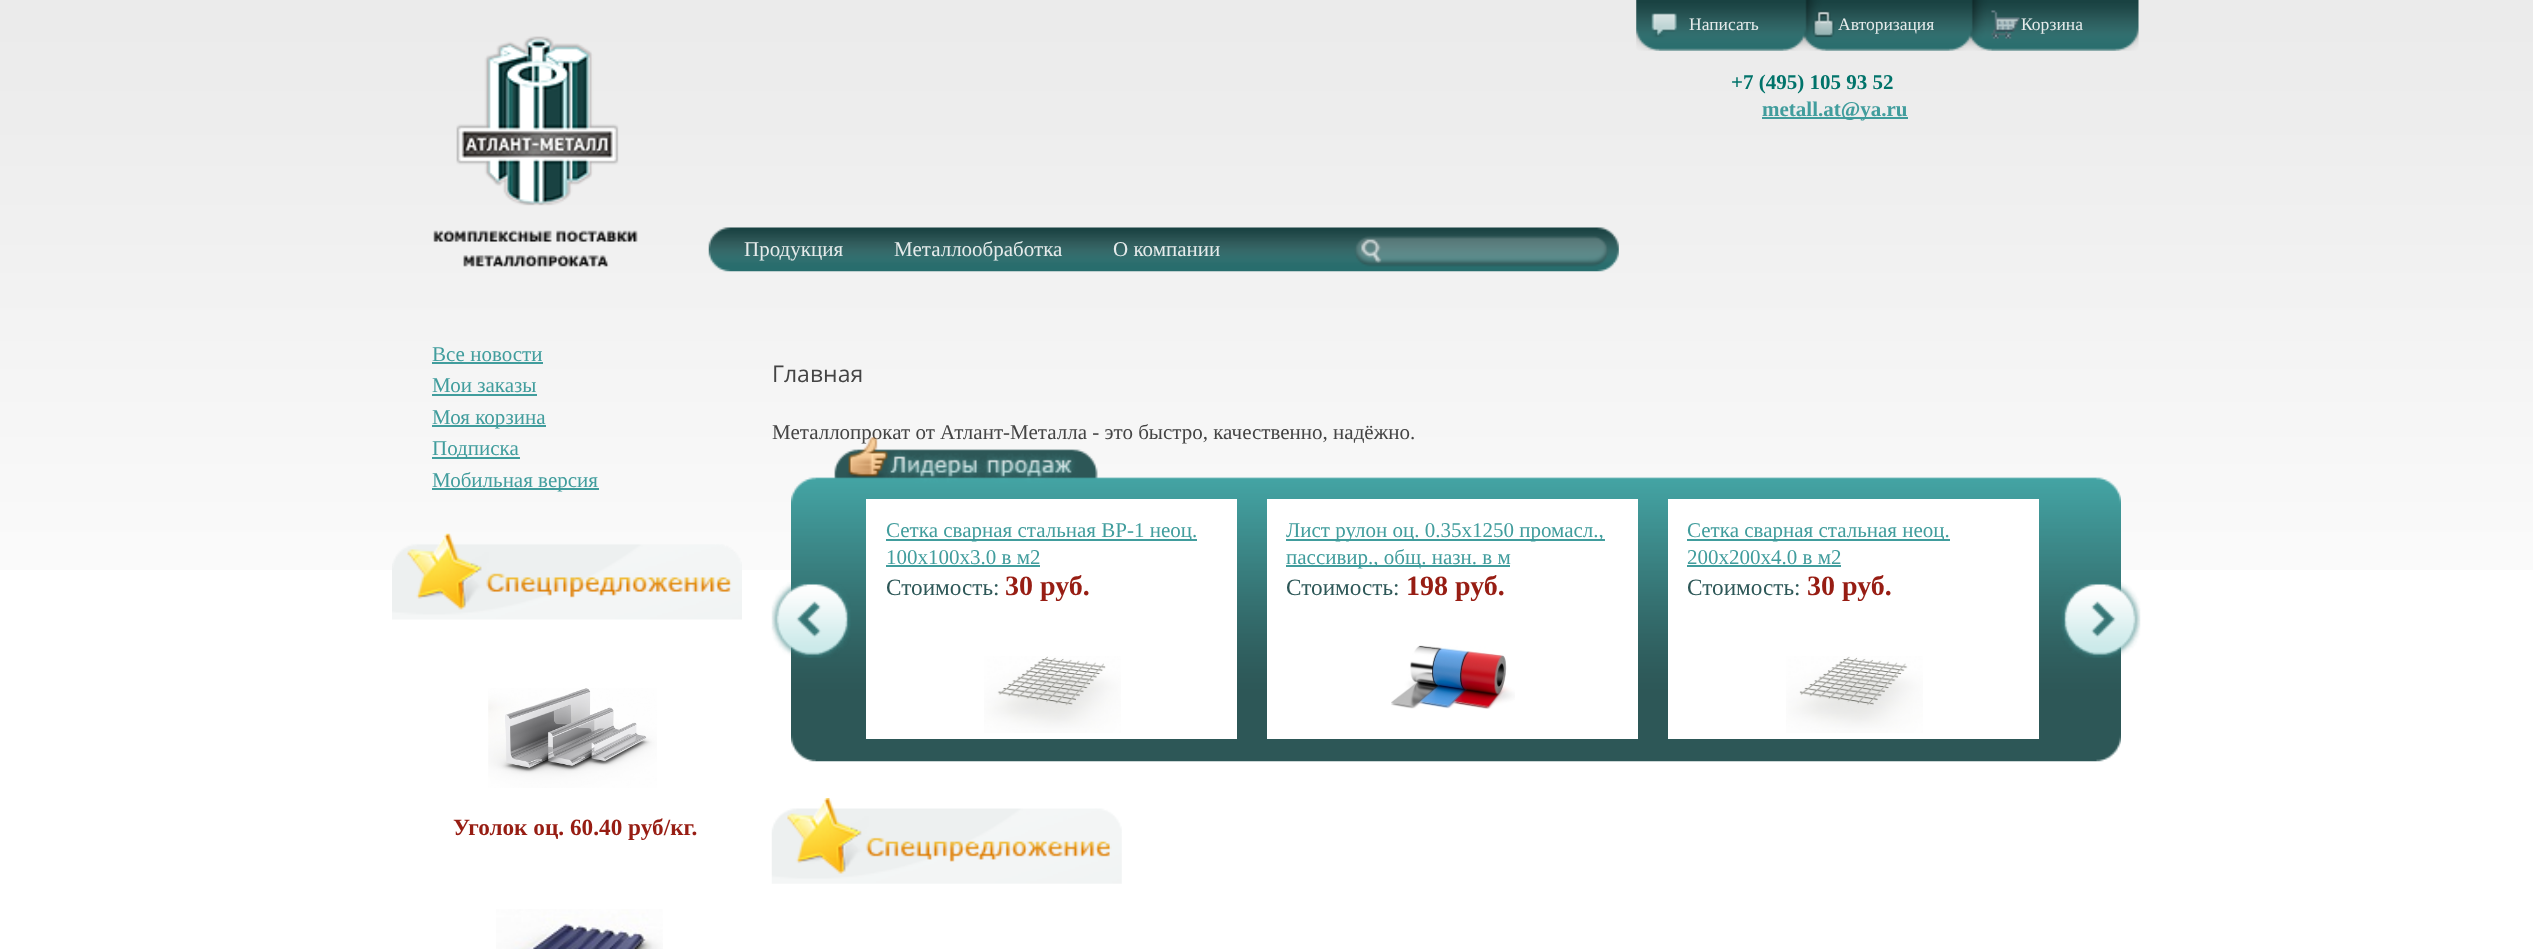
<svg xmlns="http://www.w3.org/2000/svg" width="2533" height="949">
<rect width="100%" height="100%" fill="#fff"/>
<image x="0" y="0" width="2533" height="570" href="media/1.png"/>
<image x="1636" y="0" width="503" height="51" href="media/2.png"/>
<text x="1689" y="30" style="font-family:Liberation Serif;font-size:17.5px;fill:#e6ebeb">Написать</text>
<text x="1838" y="30" style="font-family:Liberation Serif;font-size:17.5px;fill:#e6ebeb">Авторизация</text>
<text x="2021" y="30" style="font-family:Liberation Serif;font-size:17.5px;fill:#e6ebeb">Корзина</text>
<text x="1731" y="89" style="font-family:Liberation Serif;font-size:21px;font-weight:bold;fill:#00736a">+7 (495) 105 93 52</text>
<rect x="1762" y="117" width="146" height="2" fill="#419d9d"/>
<text x="1762" y="116" style="font-family:Liberation Serif;font-size:21px;font-weight:bold;fill:#419d9d">metall.at@ya.ru</text>
<image x="433" y="36" width="205" height="231" href="media/3.png"/>
<image x="708" y="227" width="911" height="45" href="media/4.png"/>
<text x="744" y="256" style="font-family:Liberation Serif;font-size:21px;fill:#e6ebeb">Продукция</text>
<text x="894" y="256" style="font-family:Liberation Serif;font-size:21px;fill:#e6ebeb">Металлообработка</text>
<text x="1113" y="256" style="font-family:Liberation Serif;font-size:21px;fill:#e6ebeb">О компании</text>
<text x="432" y="361" style="font-family:Liberation Serif;font-size:21px;fill:#419d9d">Все новости</text>
<rect x="432" y="362" width="111" height="2" fill="#419d9d"/>
<text x="432" y="392" style="font-family:Liberation Serif;font-size:21px;fill:#419d9d">Мои заказы</text>
<rect x="432" y="394" width="105" height="2" fill="#419d9d"/>
<rect x="432" y="425" width="114" height="2" fill="#419d9d"/>
<text x="432" y="424" style="font-family:Liberation Serif;font-size:21px;fill:#419d9d">Моя корзина</text>
<rect x="432" y="457" width="88" height="2" fill="#419d9d"/>
<text x="432" y="455" style="font-family:Liberation Serif;font-size:21px;fill:#419d9d">Подписка</text>
<rect x="432" y="488" width="167" height="2" fill="#419d9d"/>
<text x="432" y="487" style="font-family:Liberation Serif;font-size:21px;fill:#419d9d">Мобильная версия</text>
<image x="392" y="533" width="350" height="87" href="media/5.png"/>
<image x="488" y="688" width="169" height="100" href="media/6.png"/>
<text x="453" y="835" style="font-family:Liberation Serif;font-size:23.25px;font-weight:bold;fill:#971d13">Уголок оц. 60.40 руб/кг.</text>
<image x="496" y="909" width="167" height="40" href="media/7.png"/>
<text x="772" y="382" style="font-family:Open Sans;font-size:23px;fill:#444">Главная</text>
<text x="772" y="439" style="font-family:Liberation Serif;font-size:21px;fill:#444">Металлопрокат от Атлант-Металла - это быстро, качественно, надёжно.</text>
<image x="791" y="437" width="1330" height="325" href="media/8.png"/>
<rect x="867" y="500" width="369" height="238" fill="none" stroke="#fff" stroke-width="2"/>
<rect x="868" y="501" width="367" height="236" fill="#fff"/>
<rect x="886" y="539" width="311" height="2" fill="#419d9d"/>
<text x="886" y="537" style="font-family:Liberation Serif;font-size:21px;fill:#419d9d">Сетка сварная стальная ВР-1 неоц.</text>
<text x="886" y="564" style="font-family:Liberation Serif;font-size:21px;fill:#419d9d">100х100х3.0 в м2</text>
<rect x="886" y="565" width="154" height="2" fill="#419d9d"/>
<text x="886" y="595" style="font-family:Liberation Serif;font-size:23.25px;fill:#2d5757">Стоимость:</text>
<text x="1005" y="595" style="font-family:Liberation Serif;font-size:28px;font-weight:bold;fill:#971d13">30 руб.</text>
<image x="984" y="656" width="137" height="77" href="media/9.png"/>
<rect x="1268" y="500" width="369" height="238" fill="none" stroke="#fff" stroke-width="2"/>
<rect x="1269" y="501" width="367" height="236" fill="#fff"/>
<rect x="1286" y="539" width="319" height="2" fill="#419d9d"/>
<text x="1286" y="537" style="font-family:Liberation Serif;font-size:21px;fill:#419d9d">Лист рулон оц. 0.35х1250 промасл.,</text>
<rect x="1286" y="565" width="224" height="2" fill="#419d9d"/>
<text x="1286" y="564" style="font-family:Liberation Serif;font-size:21px;fill:#419d9d">пассивир., общ. назн. в м</text>
<text x="1286" y="595" style="font-family:Liberation Serif;font-size:23.25px;fill:#2d5757">Стоимость:</text>
<text x="1406" y="595" style="font-family:Liberation Serif;font-size:28px;font-weight:bold;fill:#971d13">198 руб.</text>
<image x="1391" y="645" width="124" height="64" href="media/10.png"/>
<rect x="1669" y="500" width="369" height="238" fill="none" stroke="#fff" stroke-width="2"/>
<rect x="1670" y="501" width="367" height="236" fill="#fff"/>
<rect x="1687" y="539" width="263" height="2" fill="#419d9d"/>
<text x="1687" y="537" style="font-family:Liberation Serif;font-size:21px;fill:#419d9d">Сетка сварная стальная неоц.</text>
<text x="1687" y="564" style="font-family:Liberation Serif;font-size:21px;fill:#419d9d">200х200х4.0 в м2</text>
<rect x="1687" y="565" width="154" height="2" fill="#419d9d"/>
<text x="1687" y="595" style="font-family:Liberation Serif;font-size:23.25px;fill:#2d5757">Стоимость:</text>
<text x="1807" y="595" style="font-family:Liberation Serif;font-size:28px;font-weight:bold;fill:#971d13">30 руб.</text>
<image x="1786" y="656" width="137" height="77" href="media/11.png"/>
<image x="771" y="582" width="80" height="76" href="media/12.png"/>
<image x="2061" y="582" width="80" height="76" href="media/13.png"/>
<image x="771" y="798" width="351" height="86" href="media/14.png"/>
</svg>
